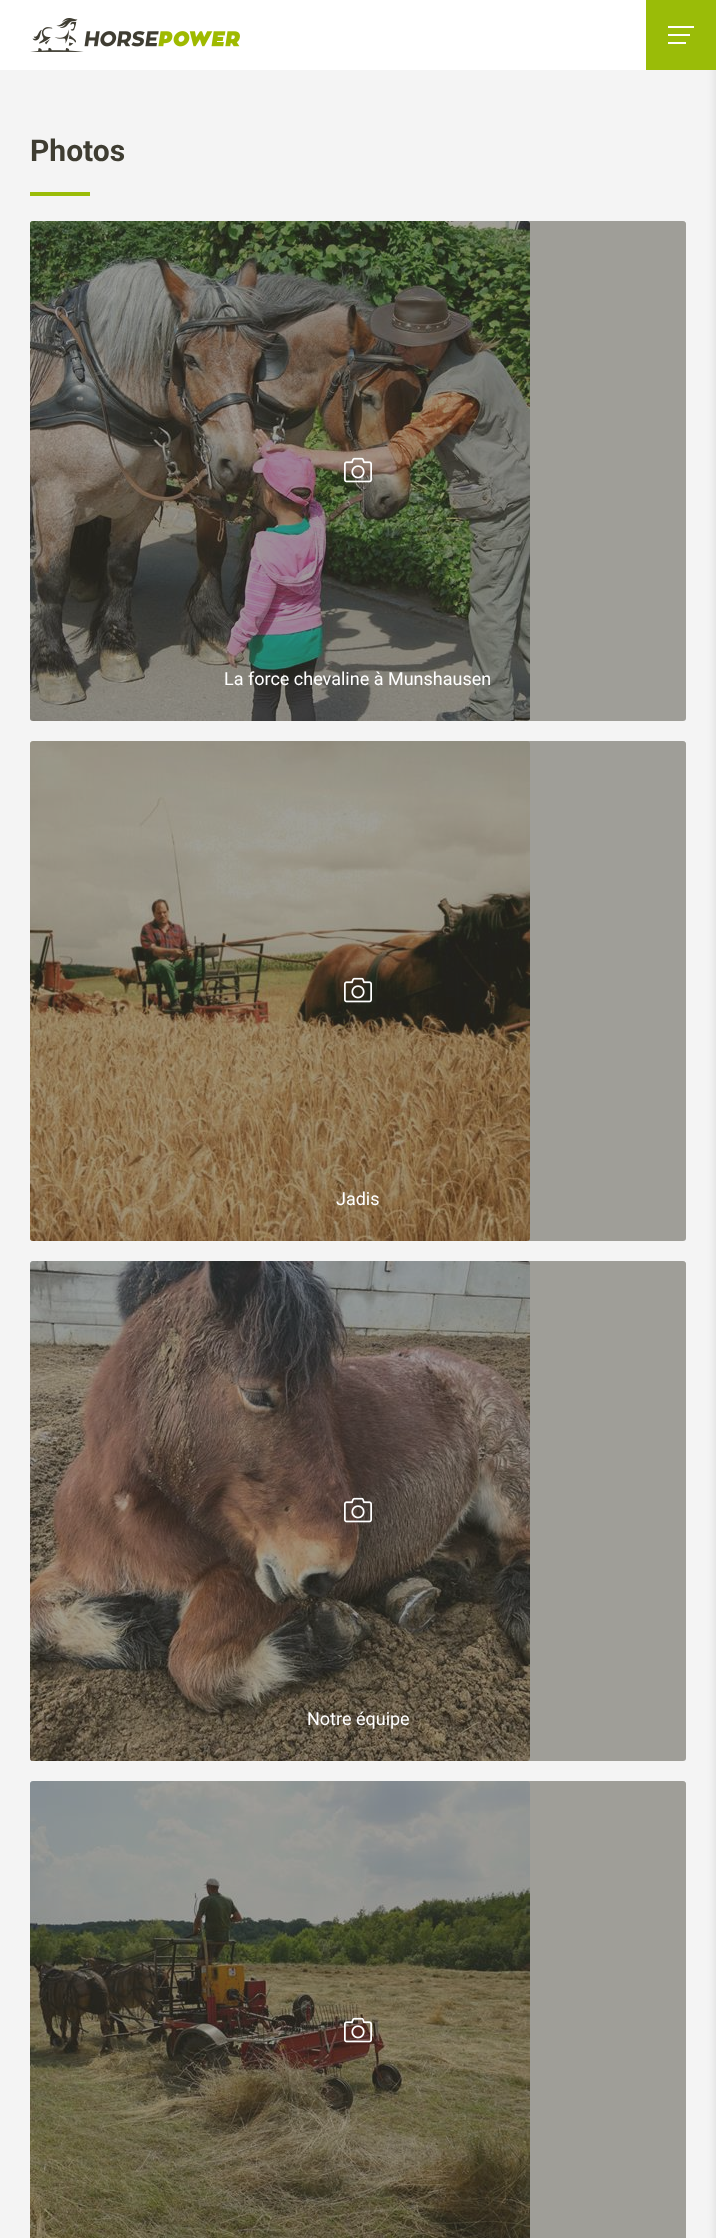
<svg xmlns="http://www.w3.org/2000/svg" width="716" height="2238">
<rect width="100%" height="100%" fill="#fff"/>
<rect y="70" width="716" height="2168" fill="#f4f4f4"/>
<rect x="716" width="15" height="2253" fill="#0000001a" filter="blur(5px)"/>
<rect x="646" width="70" height="70" fill="#9abc08"/>
<rect x="668" y="34" width="22" height="2" fill="#fff"/>
<rect x="668" y="26" width="26" height="2" fill="#fff"/>
<rect x="668" y="42" width="18" height="2" fill="#fff"/>
<image x="30" y="18" width="210" height="34" href="media/1.png"/>
<text x="30" y="161" style="font-family:Roboto;font-size:30px;font-weight:bold;fill:#3f3d32">Photos</text>
<rect x="30" y="192" width="60" height="4" fill="#9abc08"/>
<path d="M30 221h656v497c0 1.5-1.5 3-3 3h-650c-1.5 0-3-1.5-3-3z" fill="#fff"/>
<image x="30" y="221" width="500" height="500" href="media/3.png"/>
<rect x="30" y="221" width="656" height="500" rx="3" fill="#3f3d3280"/>
<image x="344" y="457" width="28" height="26" href="media/2.png"/>
<text x="224" y="685" style="font-family:Roboto;font-size:18px;fill:#fff">La force chevaline à Munshausen</text>
<path d="M30 741h656v497c0 1.5-1.5 3-3 3h-650c-1.5 0-3-1.5-3-3z" fill="#fff"/>
<image x="30" y="741" width="500" height="500" href="media/5.png"/>
<rect x="30" y="741" width="656" height="500" rx="3" fill="#3f3d3280"/>
<image x="344" y="977" width="28" height="26" href="media/4.png"/>
<text x="336" y="1205" style="font-family:Roboto;font-size:18px;fill:#fff">Jadis</text>
<path d="M30 1261h656v497c0 1.5-1.5 3-3 3h-650c-1.5 0-3-1.5-3-3z" fill="#fff"/>
<image x="30" y="1261" width="500" height="500" href="media/7.png"/>
<rect x="30" y="1261" width="656" height="500" rx="3" fill="#3f3d3280"/>
<image x="344" y="1497" width="28" height="26" href="media/6.png"/>
<text x="307" y="1725" style="font-family:Roboto;font-size:18px;fill:#fff">Notre équipe</text>
<rect x="30" y="1781" width="656" height="457" fill="#fff"/>
<image x="30" y="1781" width="500" height="457" href="media/8.png"/>
<rect x="30" y="1781" width="656" height="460" rx="3" fill="#3f3d3280"/>
<image x="344" y="2017" width="28" height="26" href="media/9.png"/>
</svg>
